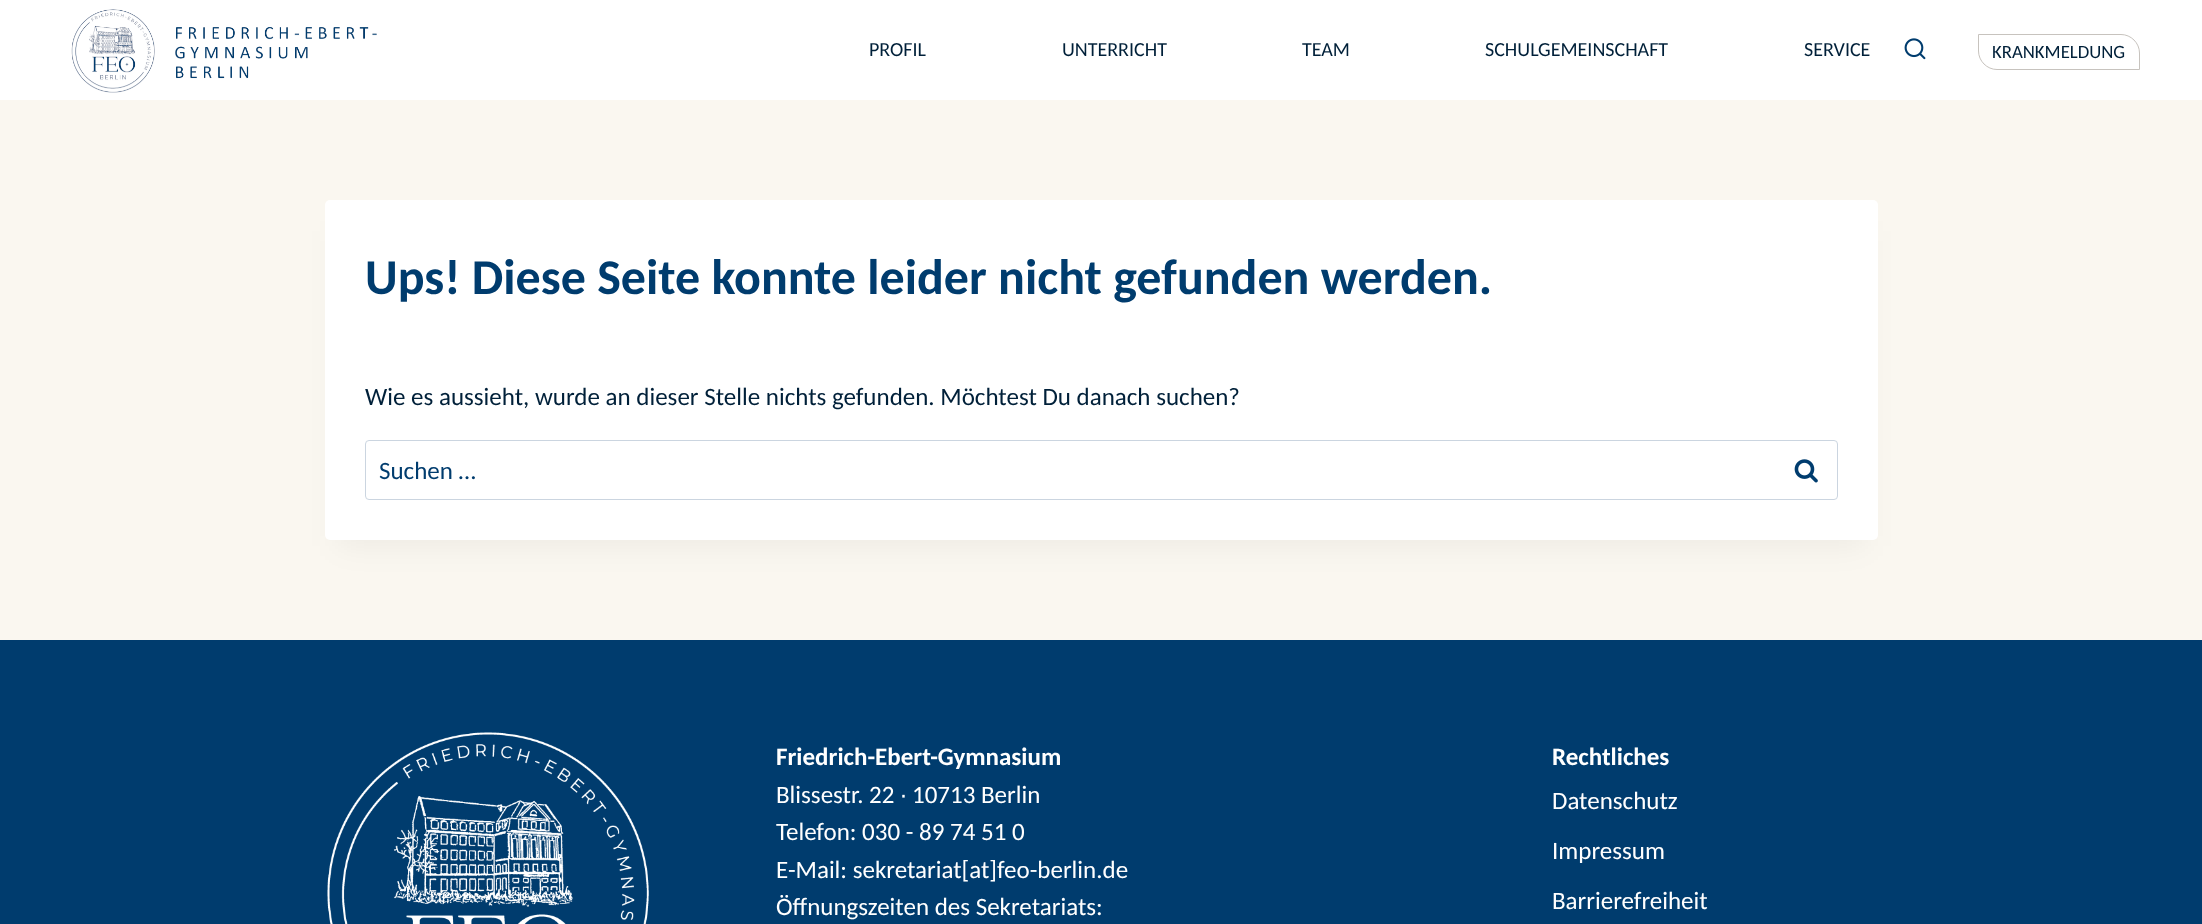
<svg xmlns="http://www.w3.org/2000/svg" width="2202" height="924">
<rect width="100%" height="100%" fill="#faf7f0"/>
<rect width="2202" height="100" fill="#fff"/>
<image x="71" y="9" width="306" height="84" href="media/1.png"/>
<text x="869" y="56" style="font-family:Carlito;font-size:20px;fill:#002039">PROFIL</text>
<text x="1062" y="56" style="font-family:Carlito;font-size:20px;fill:#002039">UNTERRICHT</text>
<text x="1302" y="56" style="font-family:Carlito;font-size:20px;fill:#002039">TEAM</text>
<text x="1485" y="56" style="font-family:Carlito;font-size:20px;fill:#002039">SCHULGEMEINSCHAFT</text>
<text x="1804" y="56" style="font-family:Carlito;font-size:20px;fill:#002039">SERVICE</text>
<image x="1904" y="38" width="22" height="22" href="media/2.png"/>
<path d="M1978.5 34.5h142.5c10 0 18.5 8.5 18.5 18.5v16.5h-142.5c-10 0-18.5-8.5-18.5-18.5z" fill="none" stroke="#c7c3be"/>
<text x="1992" y="58" style="font-family:Carlito;font-size:18.75px;fill:#002039">KRANKMELDUNG</text>
<rect x="338" y="231" width="1527" height="315" fill="#0000000d" filter="blur(15.5px)"/>
<rect x="325" y="200" width="1553" height="340" rx="5" fill="#fff"/>
<text x="365" y="294" style="font-family:Carlito;font-size:50px;font-weight:bold;fill:#003c6e">Ups! Diese Seite konnte leider nicht gefunden werden.</text>
<text x="365" y="405" style="font-family:Carlito;font-size:25px;fill:#002039">Wie es aussieht, wurde an dieser Stelle nichts gefunden. Möchtest Du danach suchen?</text>
<rect x="365.5" y="440.5" width="1472" height="59" rx="3.5" fill="none" stroke="#cbd5e0"/>
<text x="379" y="479" style="font-family:Carlito;font-size:25px;fill:#003c6e">Suchen …</text>
<image x="1794" y="459" width="24" height="24" href="media/3.png"/>
<rect y="640" width="2202" height="284" fill="#003c6e"/>
<image x="327" y="732" width="322" height="192" href="media/4.png"/>
<text x="776" y="765" style="font-family:Carlito;font-size:25px;font-weight:bold;fill:#fff">Friedrich-Ebert-Gymnasium</text>
<text x="776" y="803" style="font-family:Carlito;font-size:25px;fill:#fff">Blissestr. 22</text>
<text x="900" y="803" style="font-family:Liberation Sans;font-size:25px;fill:#fff">∙</text>
<text x="912" y="803" style="font-family:Carlito;font-size:25px;fill:#fff">10713 Berlin</text>
<text x="776" y="840" style="font-family:Carlito;font-size:25px;fill:#fff">Telefon: 030 - 89 74 51 0</text>
<text x="776" y="878" style="font-family:Carlito;font-size:25px;fill:#fff">E-Mail: sekretariat[at]feo-berlin.de</text>
<text x="776" y="915" style="font-family:Carlito;font-size:25px;fill:#fff">Öffnungszeiten des Sekretariats:</text>
<text x="1552" y="765" style="font-family:Carlito;font-size:25px;font-weight:bold;fill:#fff">Rechtliches</text>
<text x="1552" y="809" style="font-family:Carlito;font-size:25px;fill:#fff">Datenschutz</text>
<text x="1552" y="859" style="font-family:Carlito;font-size:25px;fill:#fff">Impressum</text>
<text x="1552" y="909" style="font-family:Carlito;font-size:25px;fill:#fff">Barrierefreiheit</text>
</svg>
